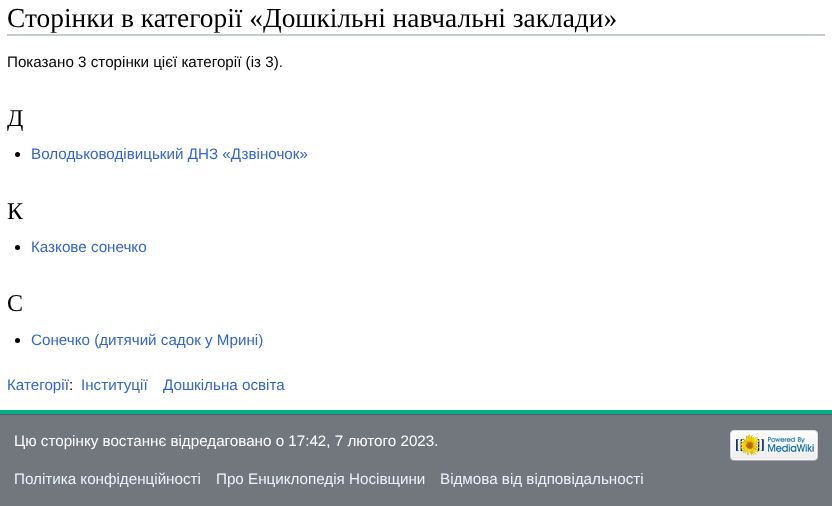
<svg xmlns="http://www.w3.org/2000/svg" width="832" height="506">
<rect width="100%" height="100%" fill="#72777d"/>
<rect y="410" width="832" height="4" fill="#00af89"/>
<rect width="832" height="410" fill="#fff"/>
<rect x="7" y="34" width="818" height="2" fill="#c8ccd1"/>
<text x="7" y="27" style="font-family:Liberation Serif;font-size:27.4px;fill:#000">Сторінки в категорії «Дошкільні навчальні заклади»</text>
<text x="7" y="67" style="font-family:Liberation Sans;font-size:15.2px;fill:#000">Показано 3 сторінки цієї категорії (із 3).</text>
<text x="7" y="126" style="font-family:Liberation Serif;font-size:24px;fill:#000">Д</text>
<circle cx="17.5" cy="154.5" r="2.5" fill="#000"/>
<text x="31" y="159" style="font-family:Liberation Sans;font-size:15.2px;fill:#36c">Володьководівицький ДНЗ «Дзвіночок»</text>
<text x="7" y="219" style="font-family:Liberation Serif;font-size:24px;fill:#000">К</text>
<circle cx="17.5" cy="247.5" r="2.5" fill="#000"/>
<text x="31" y="252" style="font-family:Liberation Sans;font-size:15.2px;fill:#36c">Казкове сонечко</text>
<text x="7" y="311" style="font-family:Liberation Serif;font-size:24px;fill:#000">С</text>
<circle cx="17.5" cy="340.5" r="2.5" fill="#000"/>
<text x="31" y="345" style="font-family:Liberation Sans;font-size:15.2px;fill:#36c">Сонечко (дитячий садок у Мрині)</text>
<text x="7" y="390" style="font-family:Liberation Sans;font-size:15.2px;fill:#36c">Категорії</text>
<text x="69" y="390" style="font-family:Liberation Sans;font-size:15.2px;fill:#000">:</text>
<text x="81" y="390" style="font-family:Liberation Sans;font-size:15.2px;fill:#36c">Інституції</text>
<text x="163" y="390" style="font-family:Liberation Sans;font-size:15.2px;fill:#36c">Дошкільна освіта</text>
<rect y="414" width="832" height="1" fill="#54595d"/>
<text x="14" y="446" style="font-family:Liberation Sans;font-size:15.2px;fill:#fff">Цю сторінку востаннє відредаговано о 17:42, 7 лютого 2023.</text>
<text x="14" y="484" style="font-family:Liberation Sans;font-size:15.2px;fill:#eaf3ff">Політика конфіденційності</text>
<text x="216" y="484" style="font-family:Liberation Sans;font-size:15.2px;fill:#eaf3ff">Про Енциклопедія Носівщини</text>
<text x="440" y="484" style="font-family:Liberation Sans;font-size:15.2px;fill:#eaf3ff">Відмова від відповідальності</text>
<image x="730" y="430" width="88" height="31" href="media/1.png"/>
</svg>
